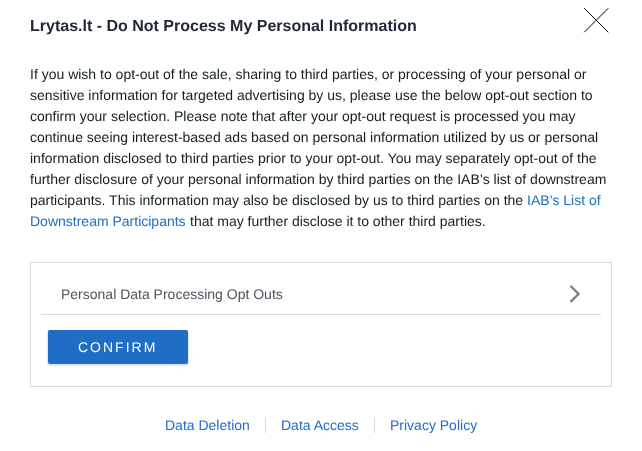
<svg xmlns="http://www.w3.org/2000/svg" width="642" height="451">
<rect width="100%" height="100%" fill="#fff"/>
<path d="M584.5 8.5l23.5 23.5m0-23.5l-23.5 23.5" fill="none" stroke="#000" stroke-linecap="round" stroke-linejoin="round"/>
<text x="30" y="31" style="font-family:Liberation Sans;font-size:16px;font-weight:bold;fill:#212934">Lrytas.lt - Do Not Process My Personal Information</text>
<text x="30" y="79" style="font-family:Liberation Sans;font-size:14px;fill:#141e23">If you wish to opt-out of the sale, sharing to third parties, or processing of your personal or</text>
<text x="30" y="100" style="font-family:Liberation Sans;font-size:14px;fill:#141e23">sensitive information for targeted advertising by us, please use the below opt-out section to</text>
<text x="30" y="121" style="font-family:Liberation Sans;font-size:14px;fill:#141e23">confirm your selection. Please note that after your opt-out request is processed you may</text>
<text x="30" y="142" style="font-family:Liberation Sans;font-size:14px;fill:#141e23">continue seeing interest-based ads based on personal information utilized by us or personal</text>
<text x="30" y="163" style="font-family:Liberation Sans;font-size:14px;fill:#141e23">information disclosed to third parties prior to your opt-out. You may separately opt-out of the</text>
<text x="30" y="184" style="font-family:Liberation Sans;font-size:14px;fill:#141e23">further disclosure of your personal information by third parties on the IAB’s list of downstream</text>
<text x="30" y="205" style="font-family:Liberation Sans;font-size:14px;fill:#141e23">participants. This information may also be disclosed by us to third parties on the</text>
<text x="527" y="205" style="font-family:Liberation Sans;font-size:14px;fill:#206dc5">IAB’s List of</text>
<text x="30" y="226" style="font-family:Liberation Sans;font-size:14px;fill:#206dc5">Downstream Participants</text>
<text x="190" y="226" style="font-family:Liberation Sans;font-size:14px;fill:#141e23">that may further disclose it to other third parties.</text>
<rect x="30.5" y="262.5" width="581" height="124" fill="none" stroke="#d8d8d8"/>
<rect x="41" y="314" width="560" height="1" fill="#d8d8d8"/>
<text x="61" y="299" style="font-family:Liberation Sans;font-size:14px;fill:#4d545d">Personal Data Processing Opt Outs</text>
<image x="569" y="285" width="11" height="18" href="media/1.png"/>
<rect x="47" y="330" width="142" height="36" rx="3" fill="#0000001a" filter="blur(0.5px)"/>
<rect x="48" y="330" width="140" height="34" rx="2" fill="#206dc5"/>
<text x="78" y="352" style="font-family:Liberation Sans;font-size:14px;letter-spacing:2px;fill:#fff">CONFIRM</text>
<text x="165" y="430" style="font-family:Liberation Sans;font-size:14px;fill:#206dc5">Data Deletion</text>
<text x="281" y="430" style="font-family:Liberation Sans;font-size:14px;fill:#206dc5">Data Access</text>
<rect x="265" y="417" width="1" height="16" fill="#d8d8d8"/>
<text x="390" y="430" style="font-family:Liberation Sans;font-size:14px;fill:#206dc5">Privacy Policy</text>
<rect x="374" y="417" width="1" height="16" fill="#d8d8d8"/>
</svg>
